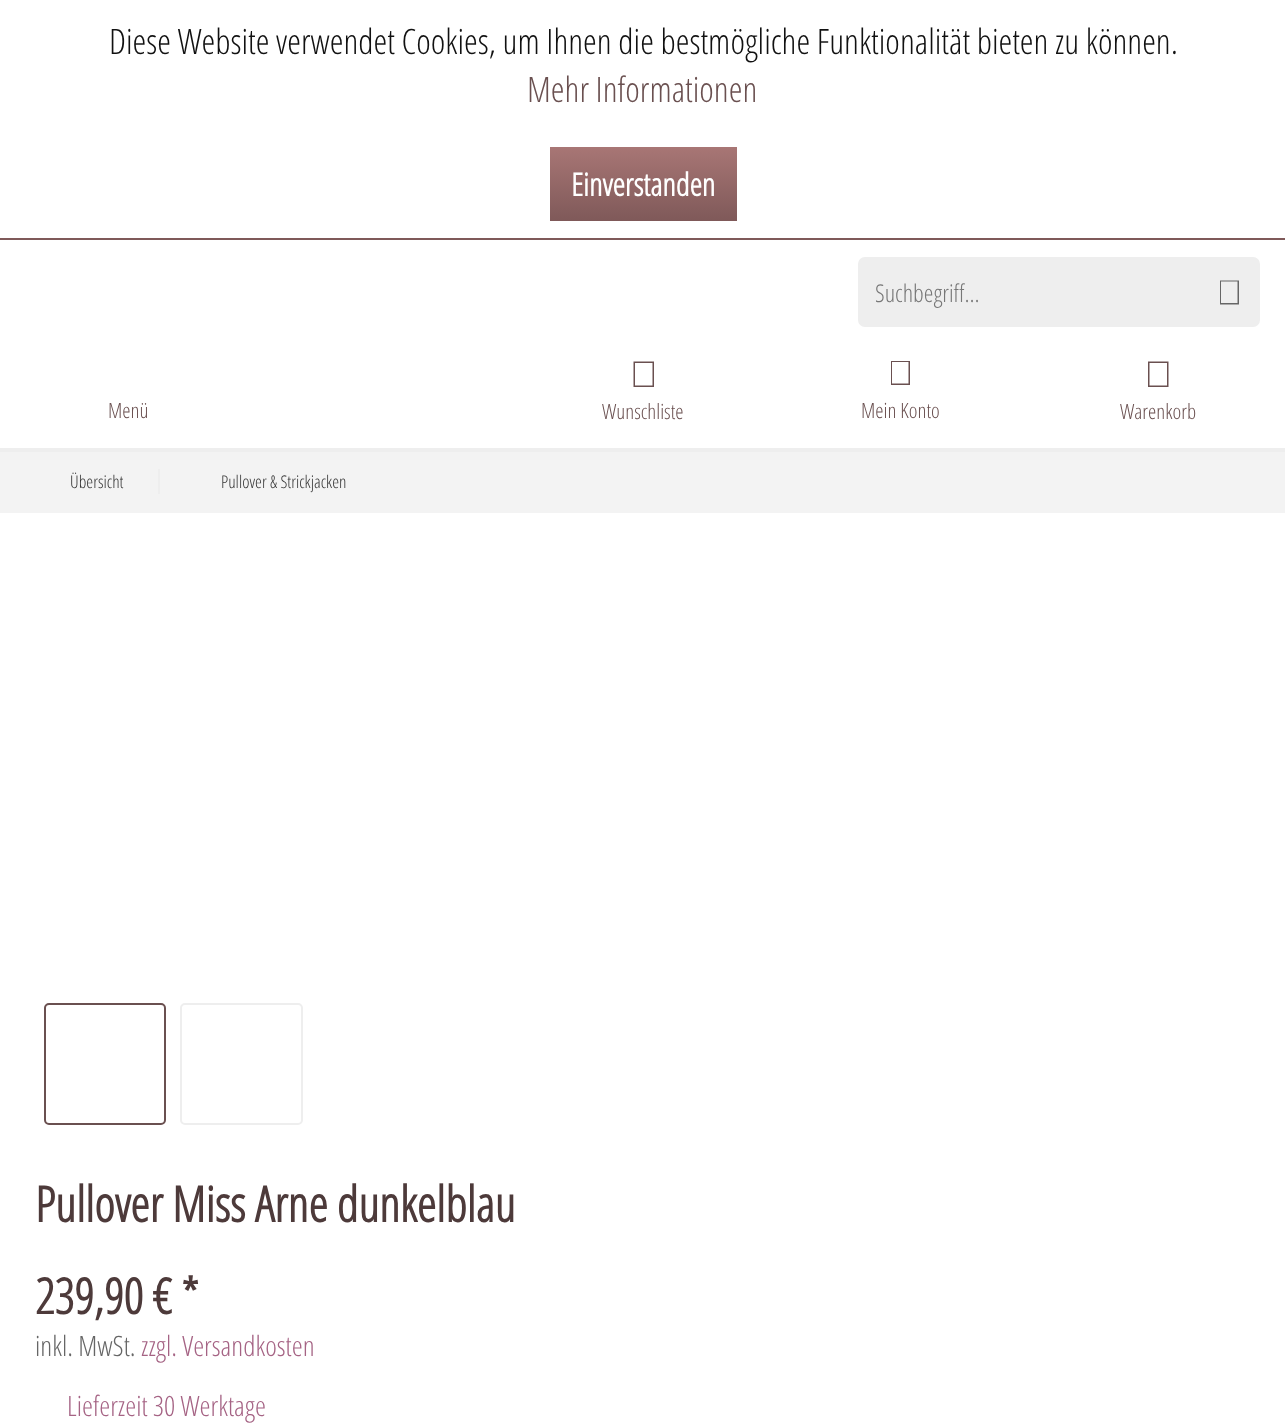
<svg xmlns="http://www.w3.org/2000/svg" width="1285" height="1427">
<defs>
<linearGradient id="g1" gradientUnits="userSpaceOnUse" x1="643" y1="147" x2="643" y2="221"><stop offset="0" stop-color="#a87675"/><stop offset="1" stop-color="#7f5959"/></linearGradient>
</defs>
<rect width="100%" height="100%" fill="#fff"/>
<rect y="238" width="1285" height="2" fill="#7f5959"/>
<text x="109" y="54" style="font-family:Open Sans Condensed;font-size:35px;font-weight:300;fill:#111">Diese Website verwendet Cookies, um Ihnen die bestmögliche Funktionalität bieten zu können.</text>
<text x="527" y="102" style="font-family:Open Sans Condensed;font-size:35px;font-weight:300;fill:#6a5050">Mehr Informationen</text>
<rect x="550" y="147" width="187" height="74" fill="url(#g1)"/>
<text x="571" y="196" style="font-family:Open Sans Condensed;font-size:31.5px;font-weight:bold;fill:#fff">Einverstanden</text>
<rect x="859" y="258" width="400" height="68" rx="6" fill="#eee" stroke="#eee" stroke-width="2"/>
<text x="875" y="302" style="font-family:Open Sans Condensed;font-size:24.5px;font-weight:300;fill:#777">Suchbegriff...</text>
<path d="M1220 280.5h19v24h-19zm1 1v21.5h16.5v-21.5z" fill="#666"/>
<text x="108" y="418" style="font-family:Open Sans Condensed;font-size:21px;font-weight:300;fill:#6a5050">Menü</text>
<path d="M633.5 361.5h20.5v25.5h-20.5zm1.5 1.5v22.5h17.5v-22.5z" fill="#6a5050"/>
<text x="602" y="419" style="font-family:Open Sans Condensed;font-size:21px;font-weight:300;fill:#6a5050">Wunschliste</text>
<path d="M891 361h19v24h-19zm1 1v21.5h16.5v-21.5z" fill="#6a5050"/>
<text x="861" y="418" style="font-family:Open Sans Condensed;font-size:21px;font-weight:300;fill:#6a5050">Mein Konto</text>
<path d="M1148 361.5h20.5v25.5h-20.5zm1.5 1.5v22.5h17.5v-22.5z" fill="#6a5050"/>
<text x="1120" y="419" style="font-family:Open Sans Condensed;font-size:21px;font-weight:300;fill:#6a5050">Warenkorb</text>
<rect y="452" width="1285" height="61" fill="#f3f3f3"/>
<rect y="448" width="1285" height="4" fill="#eee"/>
<text x="70" y="488" style="font-family:Open Sans Condensed;font-size:17.5px;font-weight:300;fill:#333">Übersicht</text>
<rect x="158" y="469" width="2" height="25" fill="#eee"/>
<text x="221" y="488" style="font-family:Open Sans Condensed;font-size:17.5px;font-weight:300;fill:#333">Pullover &amp; Strickjacken</text>
<rect x="45" y="1004" width="120" height="120" rx="4" fill="none" stroke="#6a5050" stroke-width="2"/>
<rect x="181" y="1004" width="121" height="120" rx="4" fill="none" stroke="#eee" stroke-width="2"/>
<text x="35" y="1222" style="font-family:Open Sans Condensed;font-size:49px;font-weight:bold;fill:#4d3a3a">Pullover Miss Arne dunkelblau</text>
<text x="35" y="1314" style="font-family:Open Sans Condensed;font-size:49px;font-weight:bold;fill:#4d3a3a">239,90 € *</text>
<text x="35" y="1356" style="font-family:Open Sans Condensed;font-size:28px;font-weight:300;fill:#666">inkl. MwSt.</text>
<text x="141" y="1356" style="font-family:Open Sans Condensed;font-size:28px;font-weight:300;fill:#a56384">zzgl. Versandkosten</text>
<text x="67" y="1416" style="font-family:Open Sans Condensed;font-size:28px;font-weight:300;fill:#a56384">Lieferzeit 30 Werktage</text>
</svg>
